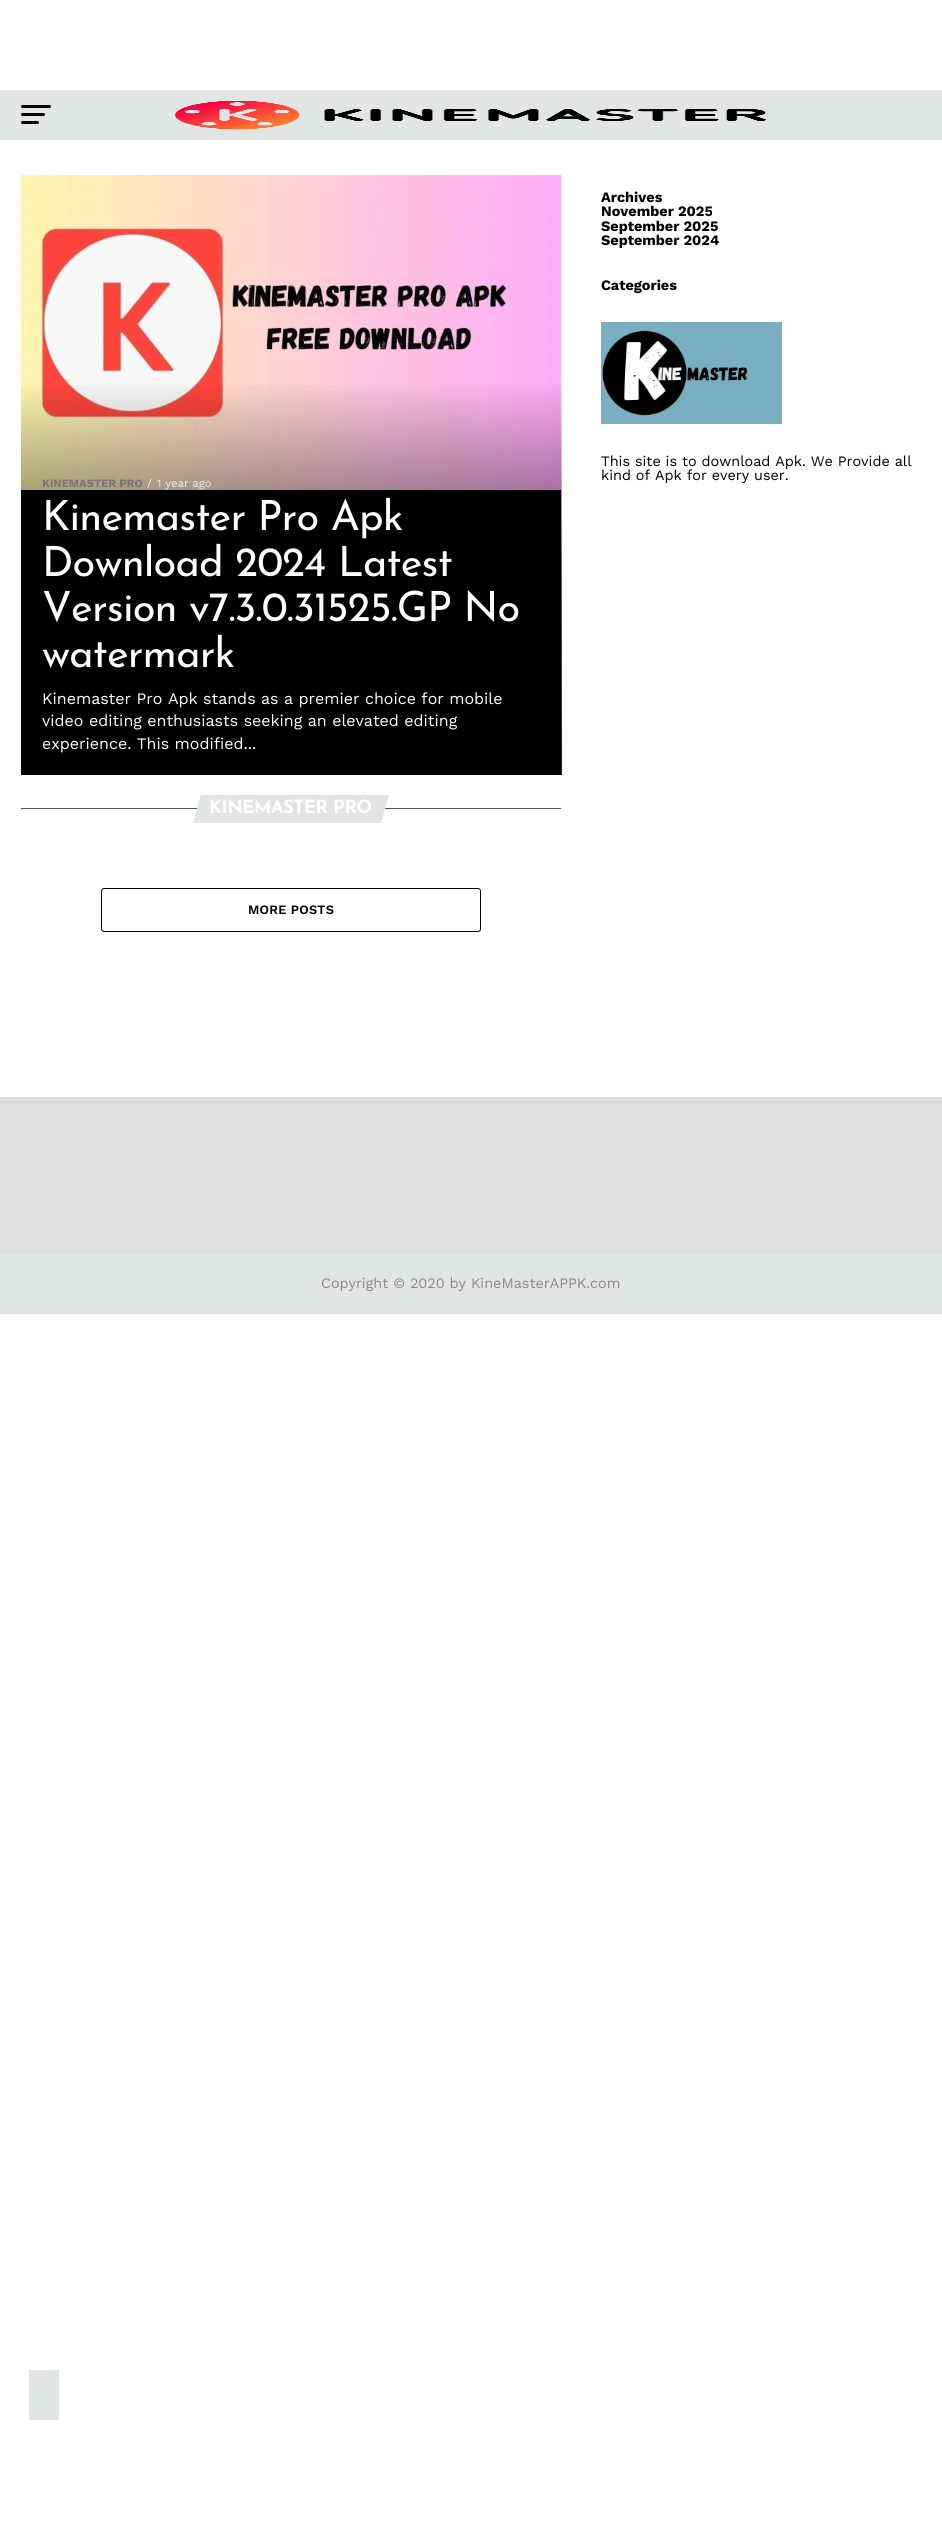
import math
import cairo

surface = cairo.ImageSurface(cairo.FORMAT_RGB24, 942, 2547)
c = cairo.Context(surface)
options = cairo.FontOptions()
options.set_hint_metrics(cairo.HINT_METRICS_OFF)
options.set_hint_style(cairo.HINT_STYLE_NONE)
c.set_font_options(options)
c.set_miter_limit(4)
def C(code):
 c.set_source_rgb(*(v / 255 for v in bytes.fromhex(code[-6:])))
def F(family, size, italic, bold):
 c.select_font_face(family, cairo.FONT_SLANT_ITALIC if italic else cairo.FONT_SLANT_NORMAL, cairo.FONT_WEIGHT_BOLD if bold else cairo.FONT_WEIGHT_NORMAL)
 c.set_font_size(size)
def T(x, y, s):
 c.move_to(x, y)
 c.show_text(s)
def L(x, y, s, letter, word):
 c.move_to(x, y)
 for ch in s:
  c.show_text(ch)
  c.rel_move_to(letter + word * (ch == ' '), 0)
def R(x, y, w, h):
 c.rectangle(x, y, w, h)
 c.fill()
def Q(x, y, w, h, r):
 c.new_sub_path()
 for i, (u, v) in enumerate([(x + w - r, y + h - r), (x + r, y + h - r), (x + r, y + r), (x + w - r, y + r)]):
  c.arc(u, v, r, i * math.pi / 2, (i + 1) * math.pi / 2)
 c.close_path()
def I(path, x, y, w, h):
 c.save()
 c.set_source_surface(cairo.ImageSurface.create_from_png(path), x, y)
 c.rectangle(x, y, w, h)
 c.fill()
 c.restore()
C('ffffff')
c.paint()
C('e1e6e4')
R(0,90,942,50)
C('000000')
Q(21,105,30,3,1.5)
c.fill()
Q(21,113,24,3,1.5)
c.fill()
Q(21,121,18,3,1.5)
c.fill()
I('1.png',175,101,591,28)
F('Work Sans',14.4,0,1)
T(601,202,'Archives')
T(601,216,'November 2025')
T(601,231,'September 2025')
T(601,245,'September 2024')
T(601,290,'Categories')
I('2.png',601,322,181,102)
F('Work Sans',14.4,0,0)
T(601,466,'This site is to download Apk. We Provide all')
T(601,480,'kind of Apk for every user.')
R(21,490,540,285)
I('3.png',21,175,540,315)
gradient = cairo.LinearGradient(292,378,292,775)
gradient.add_color_stop_rgba(0,0,0,0,0)
gradient.add_color_stop_rgba(.5,0,0,0,.6)
gradient.add_color_stop_rgba(1,0,0,0,.9)
c.set_source(gradient)
R(21,385,541,390)
F('Work Sans',11.25,0,1)
C('777777')
T(42,487,'KINEMASTER PRO')
F('Work Sans',11.25,0,0)
C('eeeeee')
T(147,487,'/')
T(157,487,'1 year ago')
F('Josefin Sans',41.6,0,0)
C('ffffff')
L(42,530,'Kinemaster Pro Apk',-.8,0)
L(42,576,'Download 2024 Latest',-.8,0)
L(42,621,'Version v7.3.0.31525.GP No',-.8,0)
L(42,667,'watermark',-.8,0)
F('Work Sans',16,0,0)
T(42,704,'Kinemaster Pro Apk stands as a premier choice for mobile')
T(42,726,'video editing enthusiasts seeking an elevated editing')
T(42,749,'experience. This modified...')
C('555555')
R(21,808,540,1)
C('e1e6e4')
c.new_path()
c.move_to(201,795)
c.line_to(389,795)
c.line_to(381,823)
c.line_to(193,823)
c.close_path()
c.fill()
F('Josefin Sans',18.25,0,1)
C('ffffff')
L(209,813,'KINEMASTER PRO',-.4,0)
Q(101.5,888.5,379,43,2.5)
C('000000')
c.set_line_width(1)
c.stroke()
F('Work Sans SemiBold',12.75,0,0)
L(248,914,'MORE POSTS',.25,0)
C('dedede')
R(0,1097,942,156)
C('e1e6e4')
R(0,1253,942,61)
F('Work Sans',14.4,0,0)
C('888888')
T(321,1288,'Copyright © 2020 by KineMasterAPPK.com')
C('e1e6e4')
R(29,2370,30,50)
surface.write_to_png('o.png')
